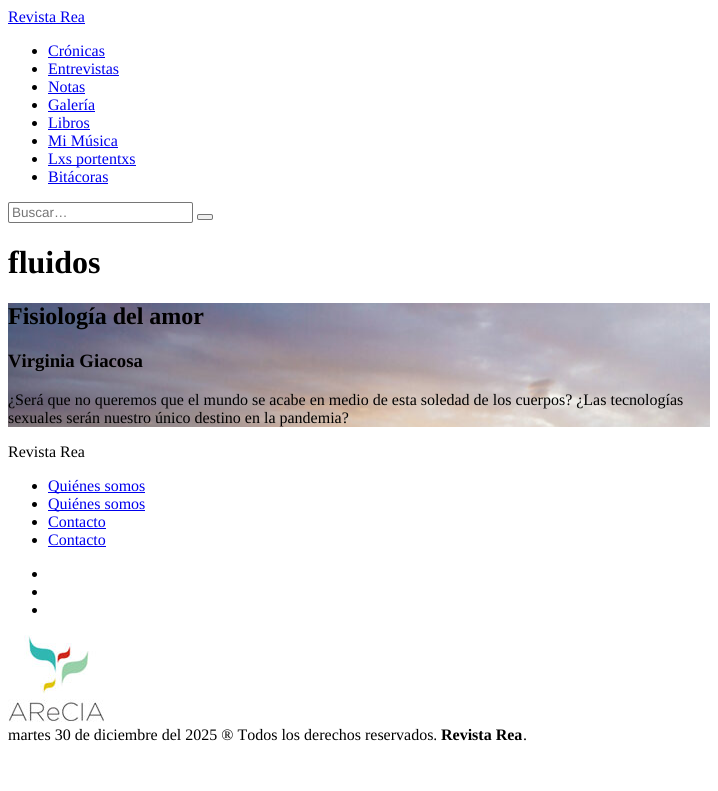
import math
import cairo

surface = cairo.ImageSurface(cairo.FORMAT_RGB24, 718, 791)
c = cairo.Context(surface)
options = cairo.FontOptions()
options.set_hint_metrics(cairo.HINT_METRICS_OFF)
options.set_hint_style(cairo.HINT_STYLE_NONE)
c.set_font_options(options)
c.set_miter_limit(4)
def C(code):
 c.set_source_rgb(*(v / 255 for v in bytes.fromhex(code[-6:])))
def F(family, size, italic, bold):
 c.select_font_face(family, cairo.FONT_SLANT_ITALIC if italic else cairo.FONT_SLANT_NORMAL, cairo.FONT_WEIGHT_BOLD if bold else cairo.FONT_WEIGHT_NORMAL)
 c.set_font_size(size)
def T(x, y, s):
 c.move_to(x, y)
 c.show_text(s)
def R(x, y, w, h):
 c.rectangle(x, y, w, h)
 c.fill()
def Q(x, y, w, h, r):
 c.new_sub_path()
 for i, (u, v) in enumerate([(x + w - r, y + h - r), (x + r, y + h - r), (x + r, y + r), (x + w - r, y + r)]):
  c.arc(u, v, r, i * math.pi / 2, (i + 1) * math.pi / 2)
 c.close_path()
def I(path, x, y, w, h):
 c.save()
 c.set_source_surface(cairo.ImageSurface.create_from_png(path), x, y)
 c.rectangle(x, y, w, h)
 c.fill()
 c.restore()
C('ffffff')
c.paint()
F('Liberation Serif',16,0,0)
C('0000ee')
T(8,22,'Revista Rea')
R(8,23,77,1)
C('000000')
c.new_path()
c.arc(34.5,51.5,2.5,0,2 * math.pi)
c.fill()
C('0000ee')
T(48,56,'Crónicas')
R(48,57,57,1)
C('000000')
c.new_path()
c.arc(34.5,69.5,2.5,0,2 * math.pi)
c.fill()
C('0000ee')
T(48,74,'Entrevistas')
R(48,75,71,1)
C('000000')
c.new_path()
c.arc(34.5,87.5,2.5,0,2 * math.pi)
c.fill()
C('0000ee')
T(48,92,'Notas')
R(48,93,37,1)
C('000000')
c.new_path()
c.arc(34.5,105.5,2.5,0,2 * math.pi)
c.fill()
C('0000ee')
T(48,110,'Galería')
R(48,111,47,1)
C('000000')
c.new_path()
c.arc(34.5,123.5,2.5,0,2 * math.pi)
c.fill()
C('0000ee')
T(48,128,'Libros')
R(48,129,42,1)
C('000000')
c.new_path()
c.arc(34.5,141.5,2.5,0,2 * math.pi)
c.fill()
C('0000ee')
T(48,146,'Mi Música')
R(48,147,70,1)
C('000000')
c.new_path()
c.arc(34.5,159.5,2.5,0,2 * math.pi)
c.fill()
C('0000ee')
R(48,165,88,1)
T(48,164,'Lxs portentxs')
C('000000')
c.new_path()
c.arc(34.5,177.5,2.5,0,2 * math.pi)
c.fill()
C('0000ee')
T(48,182,'Bitácoras')
R(48,183,60,1)
Q(8.5,202.5,184,20,1.5)
C('767676')
c.set_line_width(1)
c.stroke()
F('Liberation Sans',13.5,0,0)
C('757575')
T(12,217,'Buscar…')
C('efefef')
Q(197.5,214.5,15,5,1.5)
c.fill_preserve()
C('767676')
c.stroke()
F('Liberation Serif',32,0,1)
C('000000')
T(8,273,'fluidos')
I('1.png',8,303,702,124)
F('Liberation Serif',24,0,1)
T(8,324,'Fisiología del amor')
F('Liberation Serif',18.75,0,1)
T(8,367,'Virginia Giacosa')
F('Liberation Serif',16,0,0)
T(8,405,'¿Será que no queremos que el mundo se acabe en medio de esta soledad de los cuerpos? ¿Las tecnologías')
T(8,423,'sexuales serán nuestro único destino en la pandemia?')
T(8,457,'Revista Rea')
c.new_path()
c.arc(34.5,486.5,2.5,0,2 * math.pi)
c.fill()
C('0000ee')
R(48,492,97,1)
T(48,491,'Quiénes somos')
C('000000')
c.new_path()
c.arc(34.5,504.5,2.5,0,2 * math.pi)
c.fill()
C('0000ee')
R(48,510,97,1)
T(48,509,'Quiénes somos')
C('000000')
c.new_path()
c.arc(34.5,522.5,2.5,0,2 * math.pi)
c.fill()
C('0000ee')
T(48,527,'Contacto')
R(48,528,58,1)
C('000000')
c.new_path()
c.arc(34.5,540.5,2.5,0,2 * math.pi)
c.fill()
C('0000ee')
T(48,545,'Contacto')
R(48,546,58,1)
C('000000')
c.new_path()
c.arc(34.5,574.5,2.5,0,2 * math.pi)
c.fill()
c.arc(34.5,592.5,2.5,0,2 * math.pi)
c.fill()
c.arc(34.5,610.5,2.5,0,2 * math.pi)
c.fill()
I('2.png',8,635,96,87)
T(8,740,'martes 30 de diciembre del 2025 ® Todos los derechos reservados.')
F('Liberation Serif',16,0,1)
T(441,740,'Revista Rea')
F('Liberation Serif',16,0,0)
T(523,740,'.')
surface.write_to_png('o.png')
